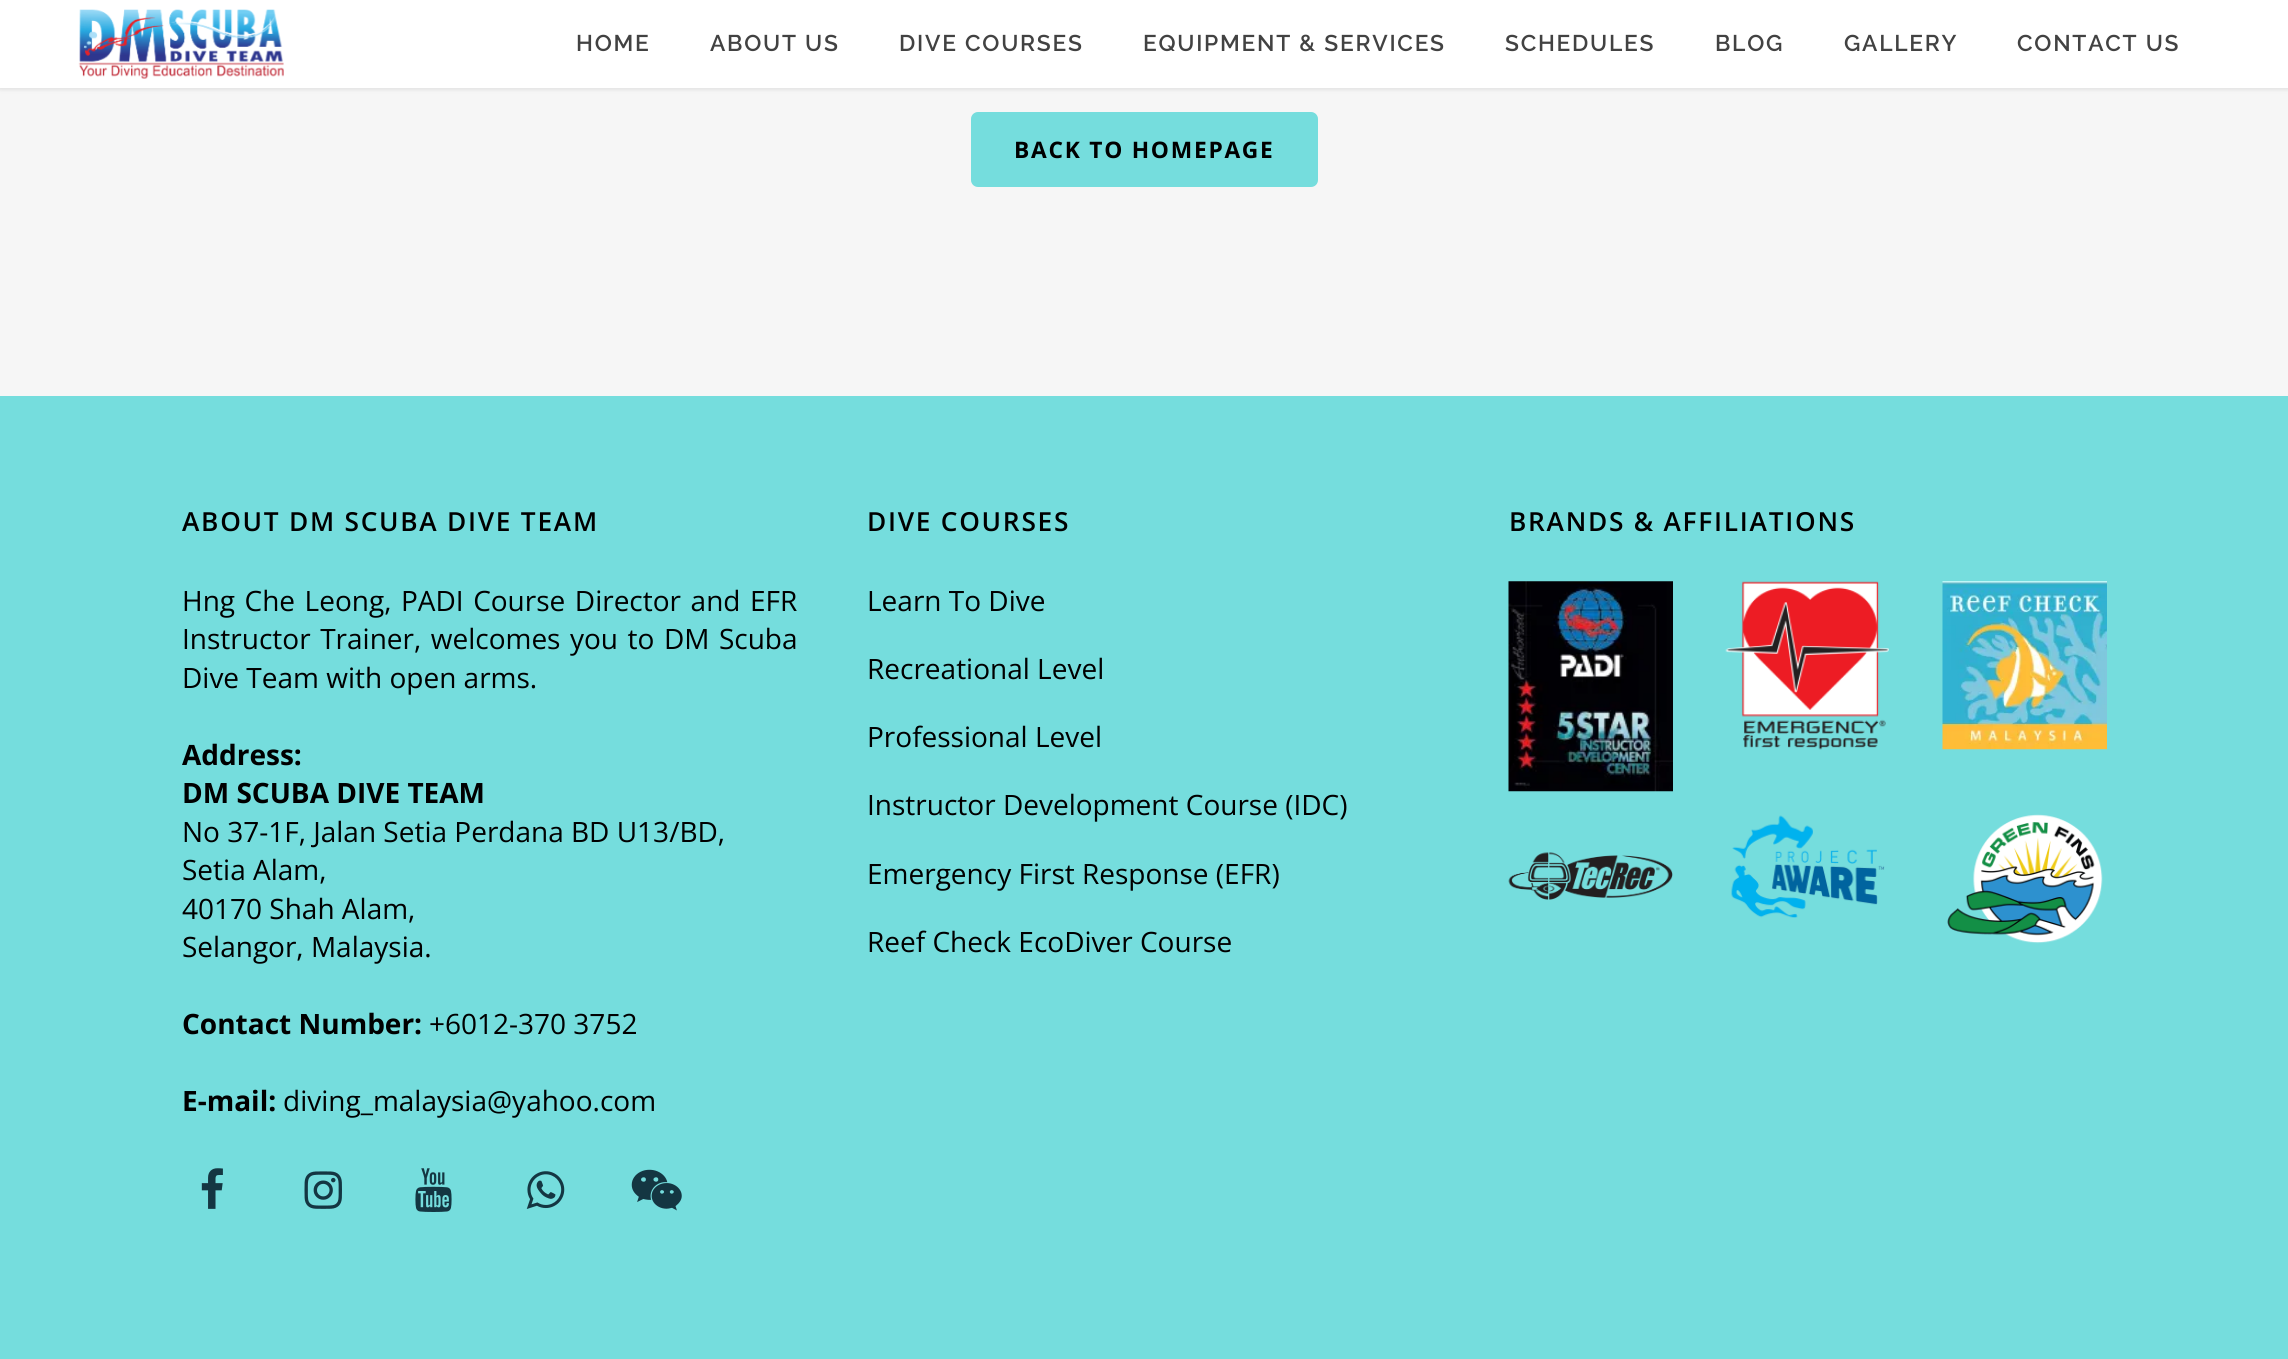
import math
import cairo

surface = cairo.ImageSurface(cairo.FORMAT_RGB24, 2288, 1359)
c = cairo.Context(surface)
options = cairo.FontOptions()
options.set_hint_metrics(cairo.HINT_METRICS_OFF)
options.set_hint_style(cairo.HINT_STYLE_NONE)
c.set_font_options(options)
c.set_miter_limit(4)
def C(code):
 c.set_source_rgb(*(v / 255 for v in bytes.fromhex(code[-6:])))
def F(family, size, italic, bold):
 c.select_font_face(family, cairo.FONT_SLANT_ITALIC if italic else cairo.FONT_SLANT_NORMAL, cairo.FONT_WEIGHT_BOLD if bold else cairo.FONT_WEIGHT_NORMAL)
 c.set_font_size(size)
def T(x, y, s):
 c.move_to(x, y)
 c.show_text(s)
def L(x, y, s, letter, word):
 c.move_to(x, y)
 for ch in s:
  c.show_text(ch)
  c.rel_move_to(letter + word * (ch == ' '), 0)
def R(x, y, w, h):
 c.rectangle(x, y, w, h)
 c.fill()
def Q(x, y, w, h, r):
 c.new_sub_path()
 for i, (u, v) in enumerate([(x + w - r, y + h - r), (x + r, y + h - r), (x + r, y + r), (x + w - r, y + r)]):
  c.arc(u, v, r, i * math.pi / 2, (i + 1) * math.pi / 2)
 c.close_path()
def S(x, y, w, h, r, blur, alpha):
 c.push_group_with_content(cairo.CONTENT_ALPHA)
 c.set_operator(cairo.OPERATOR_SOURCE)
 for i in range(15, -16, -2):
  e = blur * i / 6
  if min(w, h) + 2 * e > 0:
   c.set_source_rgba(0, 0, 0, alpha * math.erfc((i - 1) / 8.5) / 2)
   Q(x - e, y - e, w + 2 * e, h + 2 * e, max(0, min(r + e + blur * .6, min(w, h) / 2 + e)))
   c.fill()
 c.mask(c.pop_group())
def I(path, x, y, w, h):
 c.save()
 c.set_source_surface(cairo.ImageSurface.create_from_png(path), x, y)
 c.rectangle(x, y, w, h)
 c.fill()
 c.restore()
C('f6f6f6')
c.paint()
C('000000')
S(0,2,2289,87,0,2.5,.11)
C('ffffff')
R(0,0,2288,88)
I('1.png',78,9,206,70)
F('Raleway SemiBold',22.75,0,0)
C('424242')
L(576,51,'HOME',1.75,0)
L(710,51,'ABOUT US',1.75,0)
L(899,51,'DIVE COURSES',1.75,0)
L(1143,51,'EQUIPMENT & SERVICES',1.75,0)
L(1505,51,'SCHEDULES',1.75,0)
L(1715,51,'BLOG',1.75,0)
L(1844,51,'GALLERY',1.75,0)
L(2017,51,'CONTACT US',1.75,0)
C('75dddd')
Q(973,114,343,71,5)
c.fill_preserve()
c.set_line_width(4)
c.stroke()
F('Open Sans',22.75,0,1)
C('000000')
L(1014,158,'BACK TO HOMEPAGE',1.75,0)
C('75dddd')
R(0,396,2288,963)
F('Open Sans SemiBold',26.25,0,0)
C('000000')
L(182,531,'ABOUT DM SCUBA DIVE TEAM',1.75,0)
F('Open Sans',28,0,0)
L(182,611,'Hng Che Leong, PADI Course Director and EFR',0,2.25)
L(182,649,'Instructor Trainer, welcomes you to DM Scuba',0,2.25)
T(182,688,'Dive Team with open arms.')
F('Open Sans',28,0,1)
T(182,765,'Address:')
T(182,803,'DM SCUBA DIVE TEAM')
F('Open Sans',28,0,0)
T(182,842,'No 37-1F, Jalan Setia Perdana BD U13/BD,')
T(182,880,'Setia Alam,')
T(182,919,'40170 Shah Alam,')
T(182,957,'Selangor, Malaysia.')
F('Open Sans',28,0,1)
T(182,1034,'Contact Number:')
F('Open Sans',28,0,0)
T(429,1034,'+6012-370 3752')
F('Open Sans',28,0,1)
T(182,1111,'E-mail:')
F('Open Sans',28,0,0)
T(283,1111,'diving_malaysia@yahoo.com')
I('2.png',201,1168,22,41)
I('3.png',304,1171,38,38)
I('4.png',415,1168,37,44)
I('5.png',526,1171,39,38)
I('6.png',631,1169,51,42)
F('Open Sans SemiBold',26.25,0,0)
L(867,531,'DIVE COURSES',1.75,0)
F('Open Sans',28,0,0)
T(867,611,'Learn To Dive')
T(867,679,'Recreational Level')
T(867,747,'Professional Level')
T(867,815,'Instructor Development Course (IDC)')
T(867,884,'Emergency First Response (EFR)')
T(867,952,'Reef Check EcoDiver Course')
F('Open Sans SemiBold',26.25,0,0)
L(1509,531,'BRANDS & AFFILIATIONS',1.75,0)
I('7.png',1508,581,165,211)
I('8.png',1508,852,165,48)
I('9.png',1725,581,164,169)
I('10.png',1731,815,154,103)
I('11.png',1942,581,165,169)
I('12.png',1947,814,156,130)
surface.write_to_png('o.png')
